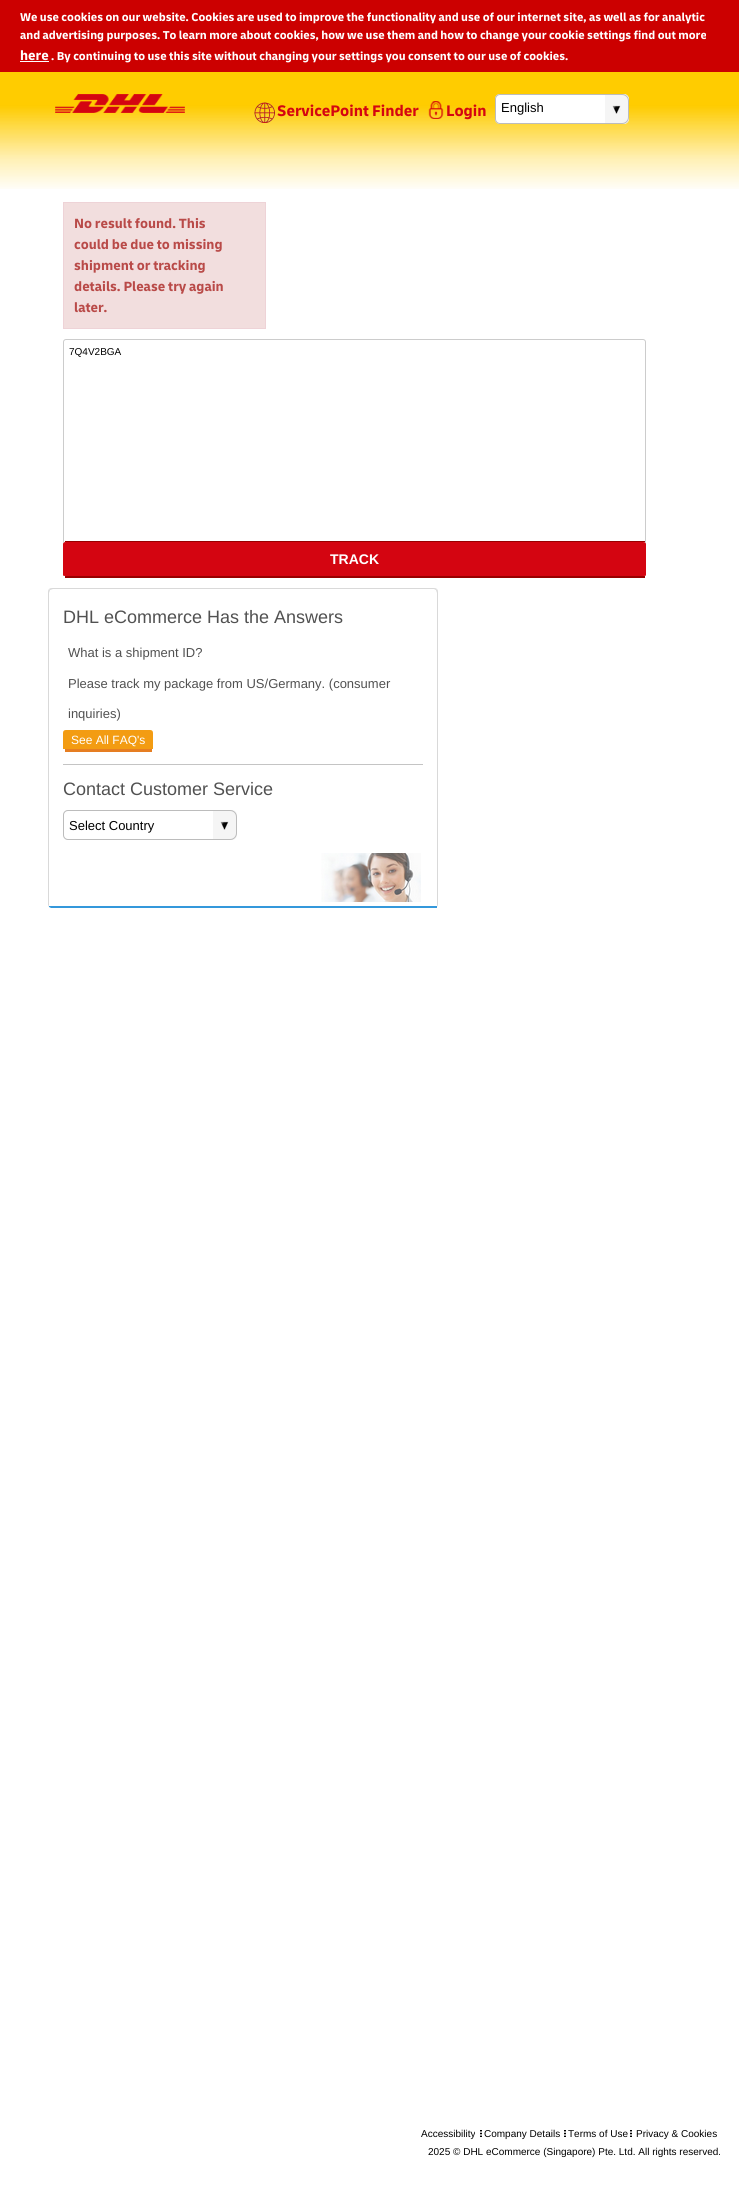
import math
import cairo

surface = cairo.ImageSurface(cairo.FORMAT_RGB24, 739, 2188)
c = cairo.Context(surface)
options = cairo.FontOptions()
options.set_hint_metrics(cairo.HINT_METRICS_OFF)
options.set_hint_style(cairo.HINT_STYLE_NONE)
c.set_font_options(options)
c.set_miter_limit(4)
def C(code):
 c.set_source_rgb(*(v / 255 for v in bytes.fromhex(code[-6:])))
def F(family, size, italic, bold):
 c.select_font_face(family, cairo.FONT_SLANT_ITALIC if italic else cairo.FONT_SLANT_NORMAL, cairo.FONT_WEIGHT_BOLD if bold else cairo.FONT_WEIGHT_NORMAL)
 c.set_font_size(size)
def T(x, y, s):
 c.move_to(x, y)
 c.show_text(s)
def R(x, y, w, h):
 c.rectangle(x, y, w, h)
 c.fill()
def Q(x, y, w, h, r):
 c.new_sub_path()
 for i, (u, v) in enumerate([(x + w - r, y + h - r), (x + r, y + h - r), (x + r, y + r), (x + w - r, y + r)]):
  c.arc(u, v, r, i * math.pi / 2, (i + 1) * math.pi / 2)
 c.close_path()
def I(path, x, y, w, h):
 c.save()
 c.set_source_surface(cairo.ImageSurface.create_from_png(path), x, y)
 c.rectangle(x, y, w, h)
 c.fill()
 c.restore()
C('ffffff')
c.paint()
C('cc0000')
R(0,0,739,72)
F('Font',12,0,1)
C('ffffff')
T(20,21,'We use cookies on our website. Cookies are used to improve the functionality and use of our internet site, as well as for analytic')
T(20,39,'and advertising purposes. To learn more about cookies, how we use them and how to change your cookie settings find out more')
F('Font',14,0,1)
T(20,60,'here')
R(20,61,29,1)
F('Font',12,0,1)
T(51,60,'. By continuing to use this site without changing your settings you consent to our use of cookies.')
I('1.png',0,72,739,117)
I('2.png',55,94,130,19)
I('3.png',254,102,21,21)
F('Font',16,0,1)
C('d40511')
T(277,116,'ServicePoint Finder')
I('4.png',428,101,16,18)
T(446,116,'Login')
C('f5f5f5')
Q(495,94,134,30,5)
c.fill()
C('ffffff')
Q(495.5,94.5,131,29,4.5)
c.fill_preserve()
C('bcbcbc')
c.set_line_width(1)
c.stroke()
F('Liberation Sans',13,0,0)
C('000000')
T(501,112,'English')
C('f5f5f5')
c.new_path()
c.move_to(605,94)
c.line_to(622,94)
c.curve_to(626,94,629,97,629,101)
c.line_to(629,117)
c.curve_to(629,121,626,124,622,124)
c.line_to(605,124)
c.close_path()
c.fill()
C('bcbcbc')
c.set_fill_rule(cairo.FILL_RULE_EVEN_ODD)
c.new_path()
c.move_to(605,94)
c.line_to(622,94)
c.curve_to(626,94,629,97,629,101)
c.line_to(629,117)
c.curve_to(629,121,626,124,622,124)
c.line_to(605,124)
c.close_path()
c.move_to(605,95)
c.line_to(622,95)
c.curve_to(625.5,95,628,97.5,628,101)
c.line_to(628,117)
c.curve_to(628,120.5,625.5,123,622,123)
c.line_to(605,123)
c.close_path()
c.fill()
I('5.png',612,105,9,9)
C('f2dede')
c.rectangle(63.5,202.5,202,126)
c.fill_preserve()
C('eed3d7')
c.stroke()
F('Font',14,0,1)
C('b94a48')
T(74,228,'No result found. This')
T(74,249,'could be due to missing')
T(74,270,'shipment or tracking')
T(74,291,'details. Please try again')
T(74,312,'later.')
Q(63.5,339.5,582,204,2.5)
C('cccccc')
c.stroke()
F('Liberation Sans',10,0,0)
C('000000')
T(69,355,'7Q4V2BGA')
C('d40511')
c.set_fill_rule(cairo.FILL_RULE_WINDING)
c.new_path()
c.move_to(66,542)
c.line_to(643,542)
c.curve_to(645,542,646,543,646,544)
c.line_to(646,575)
c.curve_to(646,576,645,576,643,576)
c.line_to(66,576)
c.curve_to(64,576,63,576,63,575)
c.line_to(63,544)
c.curve_to(63,543,64,542,66,542)
c.close_path()
c.fill()
C('990000')
R(65,541,580,1)
R(65,576,580,2)
F('Liberation Sans',14,0,1)
C('ffffff')
T(330,564,'TRACK')
C('d9d9d9')
c.new_path()
c.move_to(53,588)
c.curve_to(52,588,50,588,49,589)
c.line_to(50,590)
c.line_to(53,589)
c.line_to(434,589)
c.line_to(436,590)
c.line_to(437,589)
c.curve_to(436,588,434,588,433,588)
c.close_path()
c.fill()
c.new_path()
c.move_to(438,905)
c.line_to(438,593)
c.curve_to(438,592,438,590,437,589)
c.line_to(436,590)
c.line_to(437,593)
c.line_to(437,906)
c.line_to(437,907)
c.close_path()
c.fill()
C('3498db')
c.new_path()
c.move_to(51,908)
c.line_to(437,908)
c.line_to(437,907)
c.line_to(437,906)
c.line_to(435,906)
c.line_to(51,906)
c.line_to(49,906)
c.line_to(49,907)
c.close_path()
c.fill()
C('d9d9d9')
c.new_path()
c.move_to(48,593)
c.line_to(48,905)
c.line_to(49,907)
c.line_to(49,906)
c.line_to(49,593)
c.line_to(50,590)
c.line_to(49,589)
c.curve_to(48,590,48,592,48,593)
c.close_path()
c.fill()
F('Liberation Sans',18,0,0)
C('515151')
T(63,623,'DHL eCommerce Has the Answers')
F('Liberation Sans',13,0,0)
T(68,657,'What is a shipment ID?')
T(68,688,'Please track my package from US/Germany. (consumer')
T(68,718,'inquiries)')
C('f39c12')
c.new_path()
c.move_to(66,730)
c.line_to(150,730)
c.curve_to(152,730,153,731,153,733)
c.line_to(153,749)
c.line_to(63,749)
c.line_to(63,733)
c.curve_to(63,731,64,730,66,730)
c.close_path()
c.fill()
C('e67e22')
R(65,749,87,3)
F('Liberation Sans',12,0,0)
C('ffffff')
T(71,744,'See All FAQ\'s')
C('c4c4c4')
R(63,764,360,1)
F('Liberation Sans',18,0,0)
C('515151')
T(63,795,'Contact Customer Service')
C('f5f5f5')
Q(63,810,174,30,5)
c.fill()
C('ffffff')
Q(63.5,810.5,171,29,4.5)
c.fill_preserve()
C('bcbcbc')
c.stroke()
F('Liberation Sans',13,0,0)
C('000000')
T(69,830,'Select Country')
C('f5f5f5')
c.new_path()
c.move_to(213,810)
c.line_to(230,810)
c.curve_to(234,810,237,813,237,817)
c.line_to(237,833)
c.curve_to(237,837,234,840,230,840)
c.line_to(213,840)
c.close_path()
c.fill()
C('bcbcbc')
c.set_fill_rule(cairo.FILL_RULE_EVEN_ODD)
c.new_path()
c.move_to(213,810)
c.line_to(230,810)
c.curve_to(234,810,237,813,237,817)
c.line_to(237,833)
c.curve_to(237,837,234,840,230,840)
c.line_to(213,840)
c.close_path()
c.move_to(213,811)
c.line_to(230,811)
c.curve_to(233.5,811,236,813.5,236,817)
c.line_to(236,833)
c.curve_to(236,836.5,233.5,839,230,839)
c.line_to(213,839)
c.close_path()
c.fill()
I('5.png',220,821,9,9)
I('6.png',321,853,100,49)
F('Liberation Sans',10,0,0)
C('000000')
T(421,2137,'Accessibility')
I('7.png',480,2130,2,7)
T(484,2137,'Company Details')
I('7.png',564,2130,2,7)
T(568,2137,'Terms of Use')
I('7.png',630,2130,2,7)
T(636,2137,'Privacy & Cookies')
T(428,2155,'2025 © DHL eCommerce (Singapore) Pte. Ltd. All rights reserved.')
surface.write_to_png('o.png')
